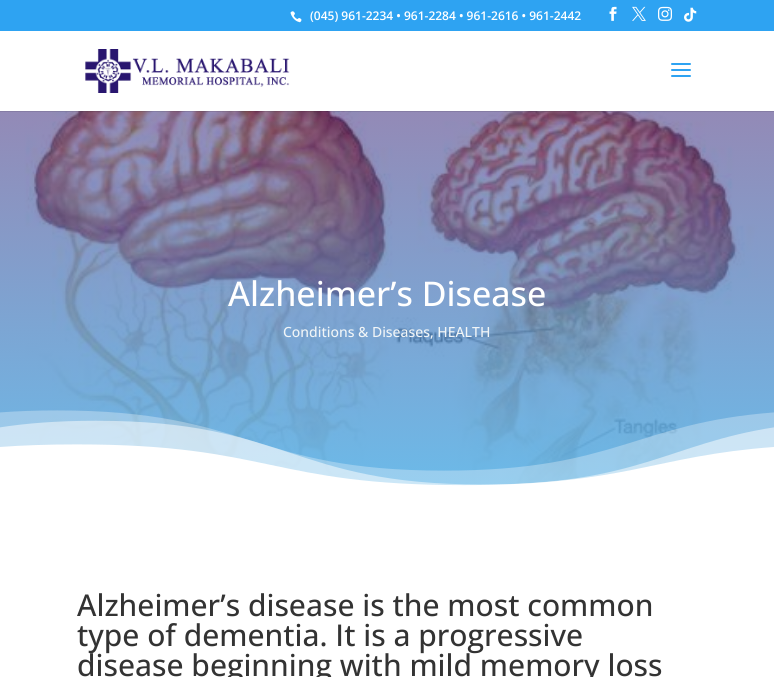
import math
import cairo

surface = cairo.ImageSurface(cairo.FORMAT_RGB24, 774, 677)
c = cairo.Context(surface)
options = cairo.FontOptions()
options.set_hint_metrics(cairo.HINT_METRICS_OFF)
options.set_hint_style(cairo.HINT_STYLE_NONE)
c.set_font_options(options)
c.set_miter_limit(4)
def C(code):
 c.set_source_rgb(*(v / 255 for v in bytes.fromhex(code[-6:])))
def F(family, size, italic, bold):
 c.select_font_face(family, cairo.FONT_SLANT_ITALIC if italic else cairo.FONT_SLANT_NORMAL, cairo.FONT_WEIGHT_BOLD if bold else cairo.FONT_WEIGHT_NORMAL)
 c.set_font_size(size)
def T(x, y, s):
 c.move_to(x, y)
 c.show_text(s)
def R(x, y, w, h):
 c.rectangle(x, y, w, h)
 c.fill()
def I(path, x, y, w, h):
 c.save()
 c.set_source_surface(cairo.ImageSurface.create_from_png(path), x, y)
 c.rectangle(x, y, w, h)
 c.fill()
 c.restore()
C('ffffff')
c.paint()
C('2ea3f2')
R(0,0,774,31)
I('1.png',290,11,12,12)
F('Open Sans SemiBold',12,0,0)
C('ffffff')
T(310,20,'(045) 961-2234 • 961-2284 • 961-2616 • 961-2442')
I('2.png',609,6,8,15)
I('3.png',632,6,14,15)
I('4.png',658,6,14,15)
I('5.png',684,7,13,15)
I('8.png',0,111,774,375)
c.set_source_rgba(0,0,0,0.1)
R(0,111,774,1)
I('6.png',85,49,205,44)
I('7.png',671,63,20,14)
F('Open Sans Medium',34,0,0)
C('ffffff')
T(228,306,'Alzheimer’s Disease')
F('Open Sans Medium',14,0,0)
C('f1f5f7')
T(283,337,'Conditions & Diseases, HEALTH')
I('9.png',0,410,774,100)
F('Open Sans Medium',30,0,0)
C('333333')
T(77,616,'Alzheimer’s disease is the most common')
T(77,646,'type of dementia. It is a progressive')
T(77,676,'disease beginning with mild memory loss')
surface.write_to_png('o.png')
